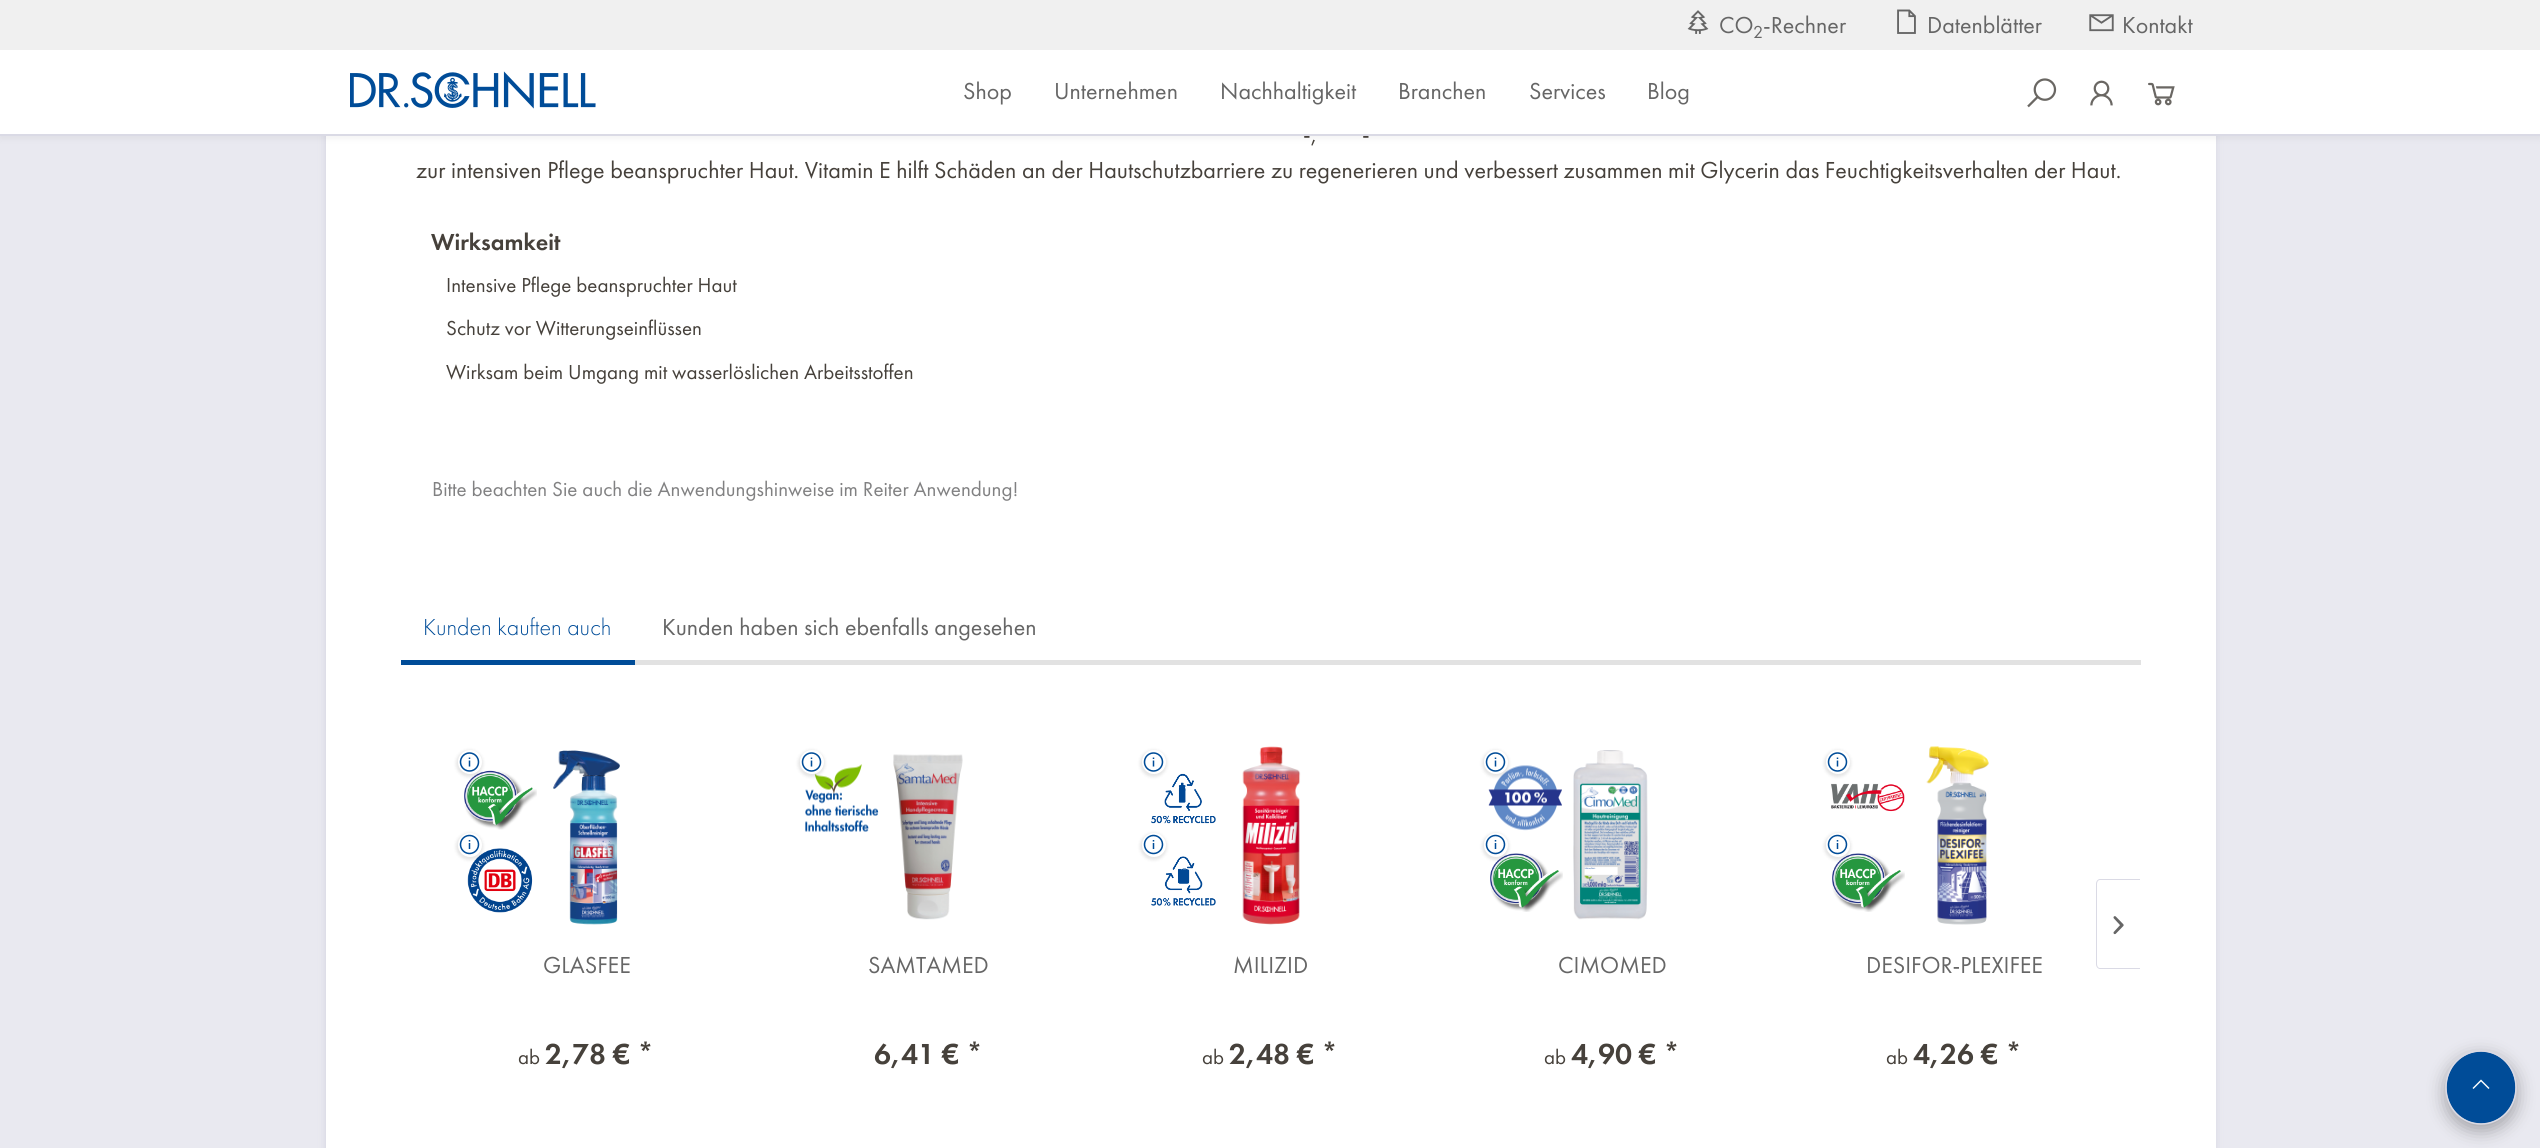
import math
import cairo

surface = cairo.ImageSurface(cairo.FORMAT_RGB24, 2540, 1148)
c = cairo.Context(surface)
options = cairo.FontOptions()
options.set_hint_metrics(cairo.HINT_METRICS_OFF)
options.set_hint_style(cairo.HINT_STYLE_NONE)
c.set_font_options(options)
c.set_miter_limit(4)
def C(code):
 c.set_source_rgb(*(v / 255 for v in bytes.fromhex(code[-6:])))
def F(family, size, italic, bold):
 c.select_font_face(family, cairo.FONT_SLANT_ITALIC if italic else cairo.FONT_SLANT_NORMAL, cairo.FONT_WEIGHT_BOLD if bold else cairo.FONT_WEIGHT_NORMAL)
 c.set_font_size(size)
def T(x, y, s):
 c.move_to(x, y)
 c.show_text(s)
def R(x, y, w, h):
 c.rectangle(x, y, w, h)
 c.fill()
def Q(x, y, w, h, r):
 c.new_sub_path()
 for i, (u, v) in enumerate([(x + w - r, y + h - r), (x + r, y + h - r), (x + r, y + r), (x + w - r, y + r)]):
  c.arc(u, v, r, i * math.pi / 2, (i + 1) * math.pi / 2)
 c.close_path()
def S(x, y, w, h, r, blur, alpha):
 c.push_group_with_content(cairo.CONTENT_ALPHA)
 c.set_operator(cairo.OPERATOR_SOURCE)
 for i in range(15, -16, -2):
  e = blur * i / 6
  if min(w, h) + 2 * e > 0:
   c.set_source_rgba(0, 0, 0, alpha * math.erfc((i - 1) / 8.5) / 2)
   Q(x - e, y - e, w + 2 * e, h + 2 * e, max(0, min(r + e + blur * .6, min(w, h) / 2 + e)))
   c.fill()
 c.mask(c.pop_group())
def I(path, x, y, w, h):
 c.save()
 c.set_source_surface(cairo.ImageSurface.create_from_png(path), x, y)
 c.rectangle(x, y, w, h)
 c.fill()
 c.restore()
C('e9e9f0')
c.paint()
C('dadae5')
S(324,-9,1893,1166,0,3,1)
C('ffffff')
R(326,136,1890,1012)
C('000000')
S(0,3,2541,135,0,4,.06)
C('ffffff')
R(0,50,2540,84)
C('dadae5')
R(0,134,2540,2)
C('f0f0f0')
R(0,0,2540,50)
I('1.png',1687,10,22,24)
F('Futura PT',24,0,0)
C('666666')
T(1719,33,'CO')
F('Futura PT',18,0,0)
T(1753,38,'2')
F('Futura PT',24,0,0)
T(1763,33,'-Rechner')
I('2.png',1897,9,19,25)
T(1927,33,'Datenblätter')
I('3.png',2089,14,25,18)
T(2122,33,'Kontakt')
I('4.png',350,71,246,38)
T(963,99,'Shop')
T(1054,99,'Unternehmen')
T(1220,99,'Nachhaltigkeit')
T(1398,99,'Branchen')
T(1529,99,'Services')
T(1647,99,'Blog')
I('5.png',2027,78,30,30)
I('6.png',2090,80,23,26)
I('7.png',2148,82,27,24)
C('46413b')
T(1303,142,'-,')
T(1362,142,'-')
T(416,178,'zur intensiven Pflege beanspruchter Haut. Vitamin E hilft Schäden an der Hautschutzbarriere zu regenerieren und verbessert zusammen mit Glycerin das Feuchtigkeitsverhalten der Haut.')
F('Futura PT Medium',24,0,0)
T(431,250,'Wirksamkeit')
F('Futura PT',21,0,0)
T(446,292,'Intensive Pflege beanspruchter Haut')
T(446,335,'Schutz vor Witterungseinflüssen')
T(446,379,'Wirksam beim Umgang mit wasserlöslichen Arbeitsstoffen')
C('818182')
T(432,496,'Bitte beachten Sie auch die Anwendungshinweise im Reiter Anwendung!')
C('e2e2e2')
R(635,660,1506,5)
C('004c98')
R(401,660,234,5)
F('Futura PT Light',24,0,0)
T(423,635,'Kunden kauften auch')
F('Futura PT',24,0,0)
C('666666')
T(662,635,'Kunden haben sich ebenfalls angesehen')
C('dadae5')
c.set_fill_rule(cairo.FILL_RULE_EVEN_ODD)
c.new_path()
c.move_to(2100,879)
c.line_to(2140,879)
c.line_to(2140,969)
c.line_to(2100,969)
c.curve_to(2098,969,2096,967,2096,964)
c.line_to(2096,884)
c.curve_to(2096,881,2098,879,2100,879)
c.close_path()
c.move_to(2100,880)
c.line_to(2140,880)
c.line_to(2140,968)
c.line_to(2100,968)
c.curve_to(2098,968,2097,966,2097,964)
c.line_to(2097,884)
c.curve_to(2097,882,2098,880,2100,880)
c.close_path()
c.fill()
I('8.png',2113,916,11,19)
I('10.png',464,770,73,60)
C('000000')
S(456,750,27,27,13.5,1.5,.1)
C('ffffff')
c.arc(470,762,12,0,2 * math.pi)
c.fill()
I('9.png',459,752,21,20)
I('12.png',467,848,66,65)
C('000000')
S(456,833,27,27,13.5,1.5,.1)
C('ffffff')
c.arc(470,845,12,0,2 * math.pi)
c.fill()
I('11.png',459,834,21,21)
I('13.png',553,750,67,175)
C('666666')
T(543,973,'GLASFEE')
F('Futura PT',21,0,0)
C('46413b')
T(518,1064,'ab')
F('Futura PT Medium',30,0,0)
T(545,1064,'2,78 € *')
I('14.png',805,764,74,68)
C('000000')
S(798,750,27,27,13.5,1.5,.1)
C('ffffff')
c.arc(812,762,12,0,2 * math.pi)
c.fill()
I('9.png',801,752,21,20)
I('15.png',893,754,70,166)
F('Futura PT',24,0,0)
C('666666')
T(868,973,'SAMTAMED')
F('Futura PT Medium',30,0,0)
C('46413b')
T(874,1064,'6,41 € *')
I('16.png',1151,773,65,51)
C('000000')
S(1140,750,27,27,13.5,1.5,.1)
C('ffffff')
c.arc(1154,762,12,0,2 * math.pi)
c.fill()
I('9.png',1143,752,21,20)
I('17.png',1151,856,65,50)
C('000000')
S(1140,833,27,27,13.5,1.5,.1)
C('ffffff')
c.arc(1154,845,12,0,2 * math.pi)
c.fill()
I('11.png',1143,834,21,21)
I('18.png',1242,746,59,179)
F('Futura PT',24,0,0)
C('666666')
T(1233,973,'MILIZID')
F('Futura PT',21,0,0)
C('46413b')
T(1202,1064,'ab')
F('Futura PT Medium',30,0,0)
T(1229,1064,'2,48 € *')
I('20.png',1488,765,74,66)
C('000000')
S(1482,750,27,27,13.5,1.5,.1)
C('ffffff')
c.arc(1496,762,12,0,2 * math.pi)
c.fill()
I('19.png',1485,752,21,20)
I('21.png',1490,853,73,59)
C('000000')
S(1482,833,27,27,13.5,1.5,.1)
C('ffffff')
c.arc(1496,845,12,0,2 * math.pi)
c.fill()
I('11.png',1485,834,21,21)
I('22.png',1573,750,75,170)
F('Futura PT',24,0,0)
C('666666')
T(1558,973,'CIMOMED')
F('Futura PT',21,0,0)
C('46413b')
T(1544,1064,'ab')
F('Futura PT Medium',30,0,0)
T(1571,1064,'4,90 € *')
C('000000')
S(1824,750,27,27,13.5,1.5,.1)
C('ffffff')
c.arc(1838,762,12,0,2 * math.pi)
c.fill()
I('9.png',1827,752,21,20)
I('23.png',1831,783,74,29)
I('24.png',1832,853,73,59)
C('000000')
S(1824,833,27,27,13.5,1.5,.1)
C('ffffff')
c.arc(1838,845,12,0,2 * math.pi)
c.fill()
I('11.png',1827,834,21,21)
I('25.png',1926,746,63,179)
F('Futura PT',24,0,0)
C('666666')
T(1866,973,'DESIFOR-PLEXIFEE')
F('Futura PT',21,0,0)
C('46413b')
T(1886,1064,'ab')
F('Futura PT Medium',30,0,0)
T(1913,1064,'4,26 € *')
C('000000')
S(2445,1056,72,75,36,9,.3)
C('004c98')
c.new_path()
c.move_to(2481,1051.5)
c.curve_to(2500,1051.5,2515.5,1067.5,2515.5,1087.5)
c.curve_to(2515.5,1107.5,2500,1123.5,2481,1123.5)
c.curve_to(2462,1123.5,2446.5,1107.5,2446.5,1087.5)
c.curve_to(2446.5,1067.5,2462,1051.5,2481,1051.5)
c.close_path()
c.fill()
c.new_path()
c.move_to(2481,1051)
c.curve_to(2500.5,1051,2516,1067,2516,1087.5)
c.curve_to(2516,1108,2500.5,1124,2481,1124)
c.curve_to(2461.5,1124,2446,1108,2446,1087.5)
c.curve_to(2446,1067,2461.5,1051,2481,1051)
c.close_path()
C('dadae5')
c.set_line_width(1.5)
c.stroke()
C('ffffff')
c.set_fill_rule(cairo.FILL_RULE_WINDING)
c.new_path()
c.move_to(2481,1079.5)
c.line_to(2472.5,1088)
c.line_to(2473.5,1089)
c.line_to(2481,1081.5)
c.line_to(2488.5,1089)
c.line_to(2489.5,1088)
c.close_path()
c.fill()
surface.write_to_png('o.png')
